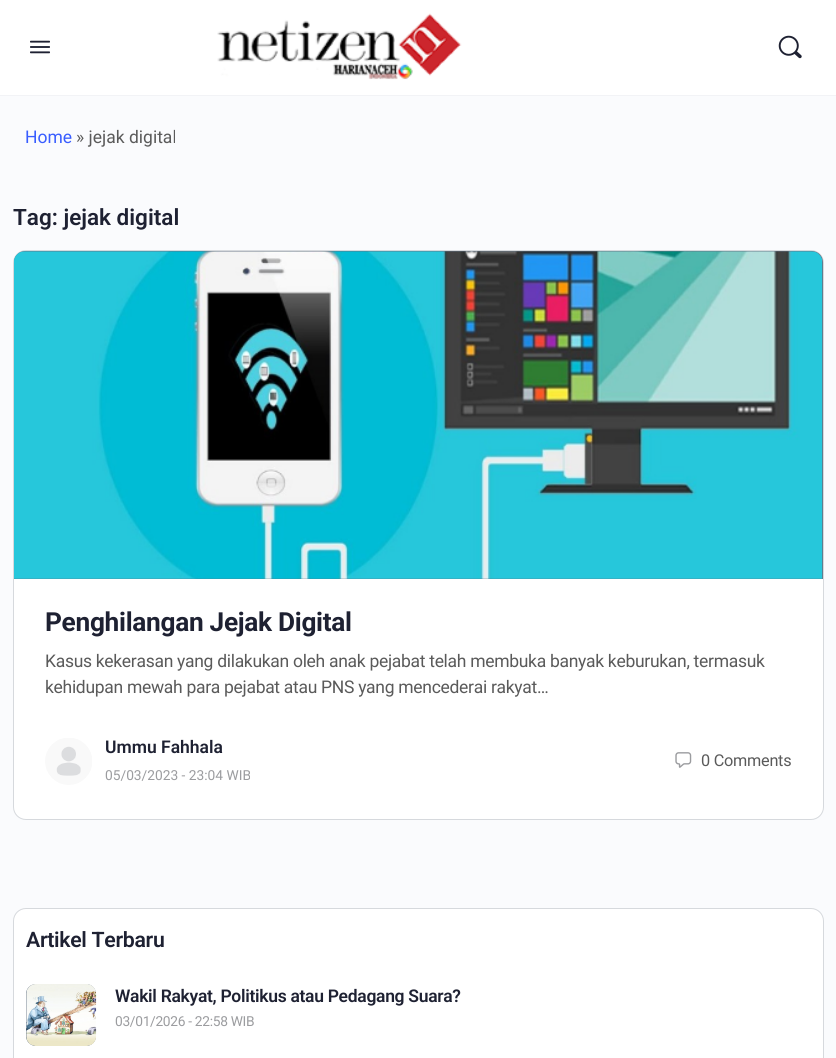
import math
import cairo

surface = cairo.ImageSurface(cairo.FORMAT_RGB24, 836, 1058)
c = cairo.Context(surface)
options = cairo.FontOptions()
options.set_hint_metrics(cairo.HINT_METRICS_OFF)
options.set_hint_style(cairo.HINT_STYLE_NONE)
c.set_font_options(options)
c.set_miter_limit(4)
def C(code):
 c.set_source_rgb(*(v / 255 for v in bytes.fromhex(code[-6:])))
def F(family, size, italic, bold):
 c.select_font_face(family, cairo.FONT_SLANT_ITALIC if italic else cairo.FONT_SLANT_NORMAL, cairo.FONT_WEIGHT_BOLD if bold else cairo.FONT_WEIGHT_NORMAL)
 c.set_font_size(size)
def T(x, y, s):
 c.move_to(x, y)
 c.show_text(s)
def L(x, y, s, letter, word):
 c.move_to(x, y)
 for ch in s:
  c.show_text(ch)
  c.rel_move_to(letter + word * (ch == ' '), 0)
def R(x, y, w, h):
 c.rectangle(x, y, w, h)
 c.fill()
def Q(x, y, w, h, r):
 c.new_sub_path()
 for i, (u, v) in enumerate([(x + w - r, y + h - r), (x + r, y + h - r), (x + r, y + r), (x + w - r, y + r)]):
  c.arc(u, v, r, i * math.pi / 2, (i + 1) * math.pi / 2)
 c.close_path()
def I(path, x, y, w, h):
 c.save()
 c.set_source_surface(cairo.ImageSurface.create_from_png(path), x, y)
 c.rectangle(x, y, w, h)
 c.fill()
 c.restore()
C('fafbfd')
c.paint()
C('f2f3f6')
R(0,95,836,1)
C('ffffff')
R(0,0,836,95)
I('1.png',30,40,20,14)
I('2.png',217,13,245,67)
I('3.png',778,35,24,24)
F('Roboto',17.5,0,0)
C('385dff')
T(25,143,'Home')
C('5a5a5a')
T(76,143,'» jejak digital')
F('Roboto SemiBold',22.5,0,0)
C('1e2132')
T(13,225,'Tag: jejak digital')
C('ffffff')
Q(13.5,250.5,810,569,12.5)
c.fill_preserve()
C('d6d9dd')
c.set_line_width(1)
c.stroke()
C('647385')
c.new_path()
c.move_to(25,251)
c.line_to(812,251)
c.curve_to(818,251,823,256,823,262)
c.line_to(823,579)
c.line_to(14,579)
c.line_to(14,262)
c.curve_to(14,256,19,251,25,251)
c.close_path()
c.fill()
I('4.png',14,251,809,328)
F('Roboto',26.25,0,1)
C('1e2132')
L(45,631,'Penghilangan Jejak Digital',-.3,0)
F('Roboto',17.5,0,0)
C('5a5a5a')
L(45,667,'Kasus kekerasan yang dilakukan oleh anak pejabat telah membuka banyak keburukan, termasuk',-.3,0)
L(45,693,'kehidupan mewah para pejabat atau PNS yang mencederai rakyat…',-.3,0)
I('5.png',45,738,47,47)
F('Roboto SemiBold',17.5,0,0)
C('1e2132')
T(105,753,'Ummu Fahhala')
F('Roboto',13.75,0,0)
C('9b9c9f')
T(105,780,'05/03/2023 - 23:04 WIB')
I('6.png',675,752,17,16)
F('Roboto',16.25,0,0)
C('5a5a5a')
L(701,766,'0 Comments',-.25,0)
C('ffffff')
Q(13.5,908.5,810,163,12.5)
c.fill_preserve()
C('d6d9dd')
c.stroke()
F('Roboto SemiBold',21.25,0,0)
C('1e2132')
L(26,947,'Artikel Terbaru',-.3,0)
C('647385')
Q(26,984,70,62,10)
c.fill()
I('7.png',26,984,71,62)
F('Roboto SemiBold',17.5,0,0)
C('1e2132')
L(115,1002,'Wakil Rakyat, Politikus atau Pedagang Suara?',-.3,0)
F('Roboto',13.75,0,0)
C('9b9c9f')
L(115,1026,'03/01/2026 - 22:58 WIB',-.3,0)
surface.write_to_png('o.png')
